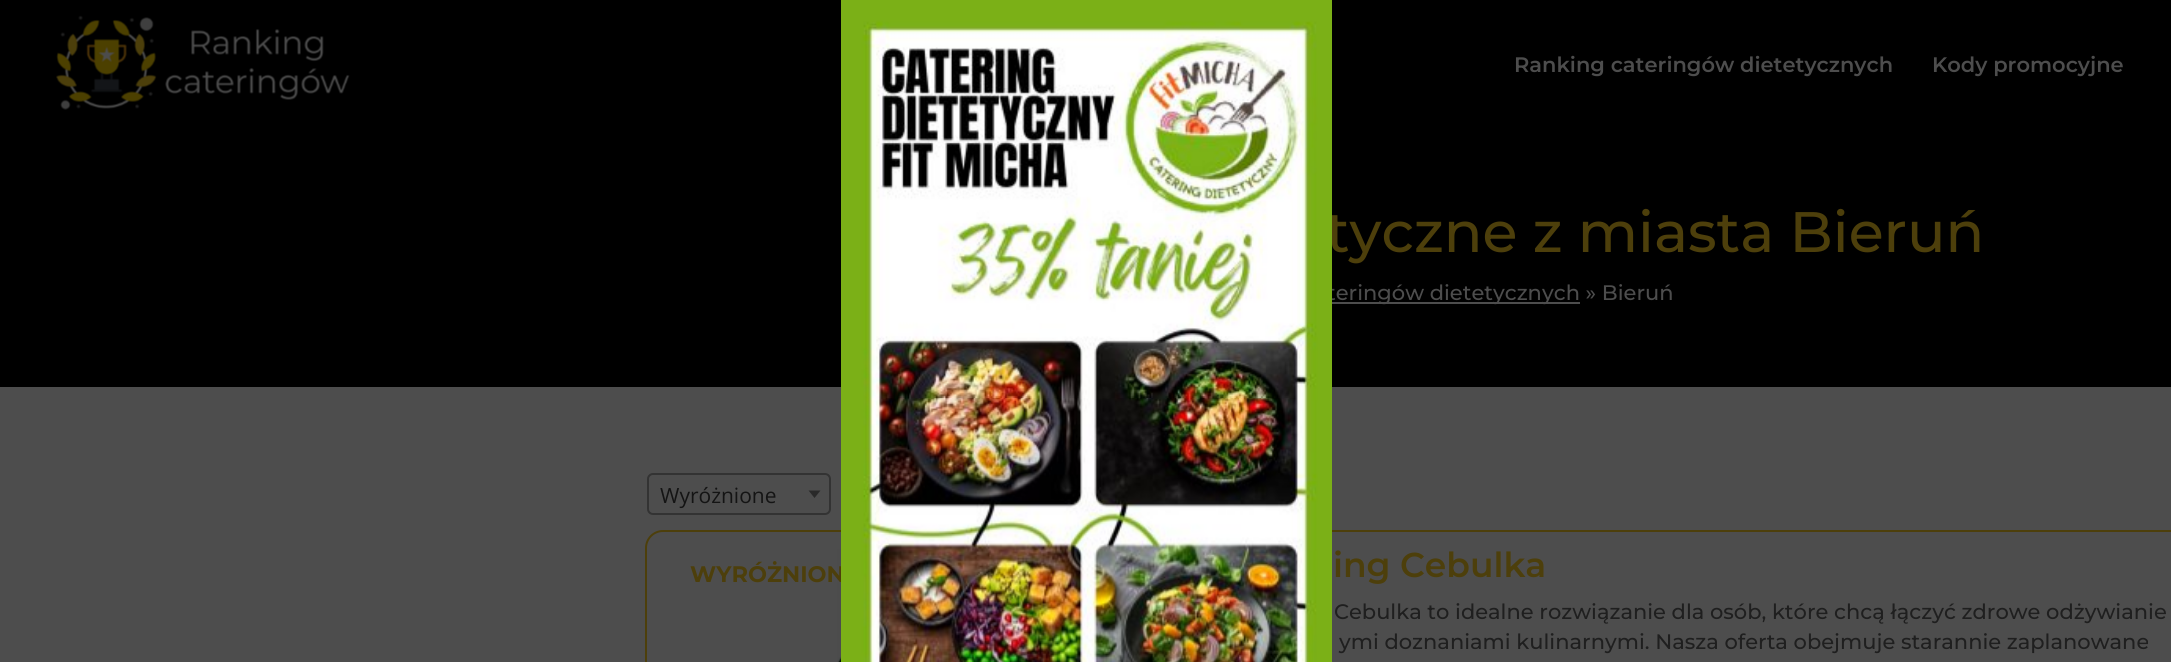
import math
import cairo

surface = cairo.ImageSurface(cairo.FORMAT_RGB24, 2171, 662)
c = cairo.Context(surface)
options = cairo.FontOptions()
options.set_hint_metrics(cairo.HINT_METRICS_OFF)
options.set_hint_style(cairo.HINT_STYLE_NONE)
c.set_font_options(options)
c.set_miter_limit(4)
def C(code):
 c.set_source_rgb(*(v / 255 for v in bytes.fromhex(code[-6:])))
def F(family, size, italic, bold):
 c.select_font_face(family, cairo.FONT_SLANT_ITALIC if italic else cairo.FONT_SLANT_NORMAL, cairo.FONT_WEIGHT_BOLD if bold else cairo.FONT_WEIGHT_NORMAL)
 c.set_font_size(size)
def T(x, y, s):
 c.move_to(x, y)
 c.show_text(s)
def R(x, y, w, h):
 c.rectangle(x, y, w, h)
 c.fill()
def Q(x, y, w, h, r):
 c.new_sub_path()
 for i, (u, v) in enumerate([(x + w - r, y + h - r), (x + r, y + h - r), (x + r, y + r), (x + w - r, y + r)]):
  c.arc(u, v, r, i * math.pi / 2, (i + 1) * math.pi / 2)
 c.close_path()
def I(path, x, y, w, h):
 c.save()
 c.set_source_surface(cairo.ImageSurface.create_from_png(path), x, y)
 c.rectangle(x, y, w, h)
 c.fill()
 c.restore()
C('4d4d4d')
c.paint()
C('000000')
R(0,0,2171,387)
F('Montserrat Thin',57,0,0)
C('4d3f0b')
T(1326,252,'tyczne z miasta Bieruń')
C('4d4d4d')
R(1332,302,248,2)
F('Montserrat Thin',21,0,0)
T(1327,300,'teringów dietetycznych » Bieruń')
Q(646,531,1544,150,17)
C('4d3f0b')
c.stroke()
I('3.png',837,549,4,113)
F('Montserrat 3 Thin',22.5,0,0)
T(690,582,'WYRÓŻNION')
I('1.png',841,0,491,662)
I('2.png',56,15,294,95)
F('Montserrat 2 Thin',21,0,0)
C('4d4d4d')
T(1514,72,'Ranking cateringów dietetycznych')
T(1932,72,'Kody promocyjne')
Q(648,474,182,40,5)
C('333333')
c.stroke()
F('Open Sans',21,0,0)
C('141414')
T(660,503,'Wyróżnione')
C('292929')
c.new_path()
c.move_to(808.5,490.5)
c.line_to(820.5,490.5)
c.line_to(814.5,498)
c.close_path()
c.fill()
F('Montserrat 2 Thin',34.5,0,0)
C('4d3f0b')
T(1333,577,'ing Cebulka')
F('Montserrat Thin',21,0,0)
C('1f1f1f')
T(1334,619,'Cebulka to idealne rozwiązanie dla osób, które chcą łączyć zdrowe odżywianie')
T(1339,649,'ymi doznaniami kulinarnymi. Nasza oferta obejmuje starannie zaplanowane')
surface.write_to_png('o.png')
